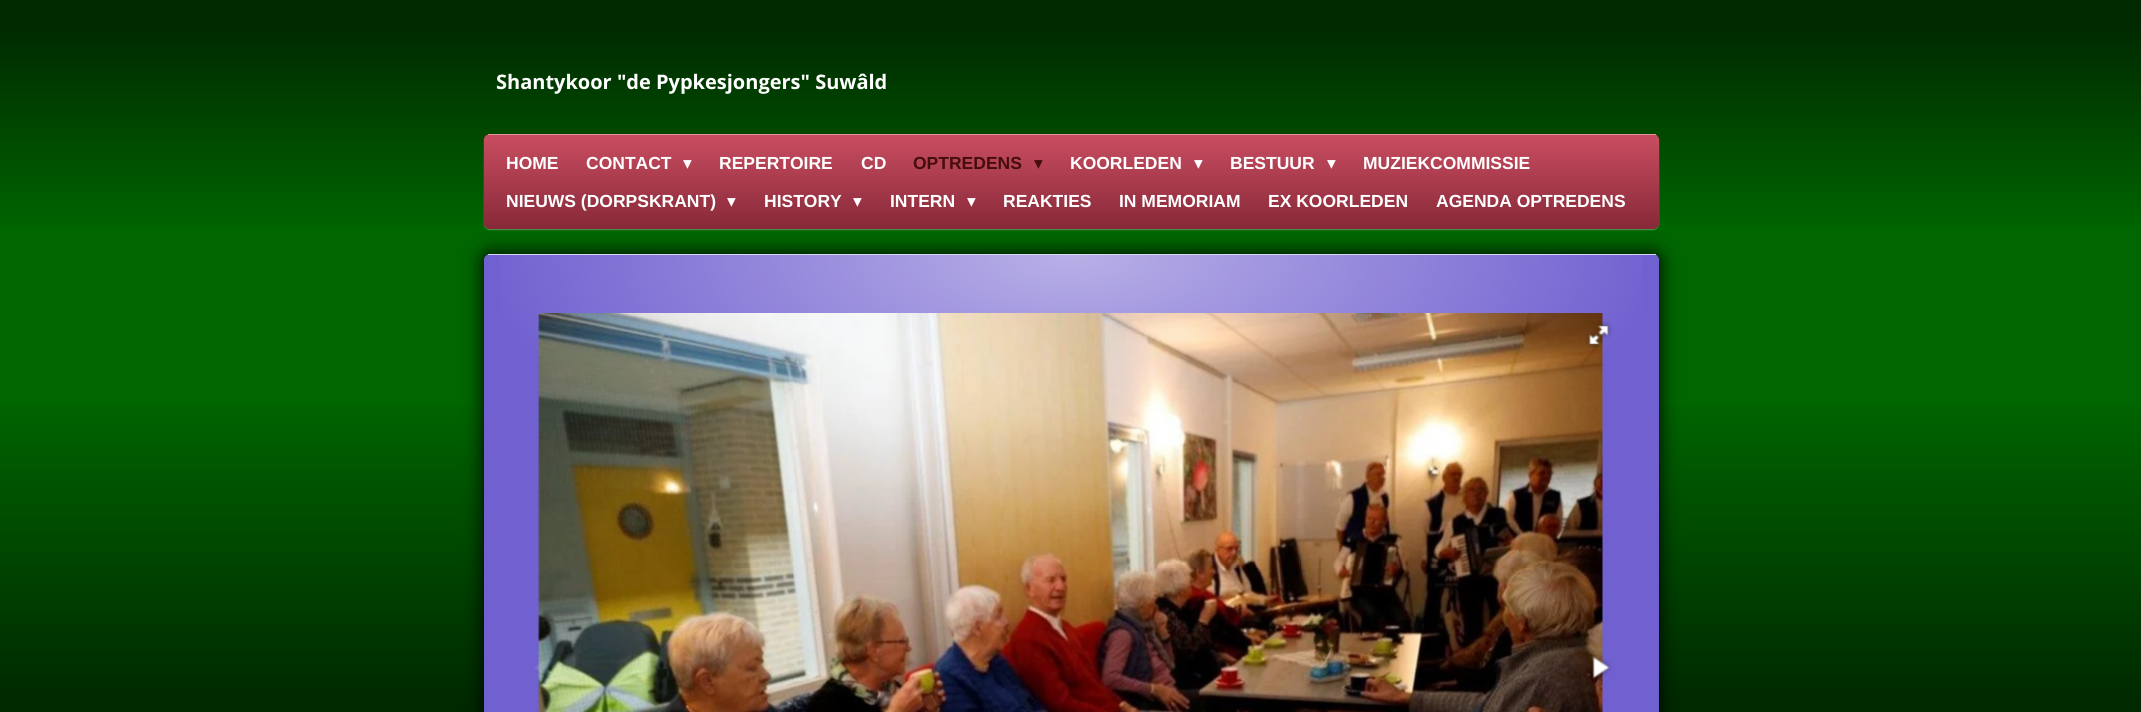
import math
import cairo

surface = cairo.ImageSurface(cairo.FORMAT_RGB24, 2141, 712)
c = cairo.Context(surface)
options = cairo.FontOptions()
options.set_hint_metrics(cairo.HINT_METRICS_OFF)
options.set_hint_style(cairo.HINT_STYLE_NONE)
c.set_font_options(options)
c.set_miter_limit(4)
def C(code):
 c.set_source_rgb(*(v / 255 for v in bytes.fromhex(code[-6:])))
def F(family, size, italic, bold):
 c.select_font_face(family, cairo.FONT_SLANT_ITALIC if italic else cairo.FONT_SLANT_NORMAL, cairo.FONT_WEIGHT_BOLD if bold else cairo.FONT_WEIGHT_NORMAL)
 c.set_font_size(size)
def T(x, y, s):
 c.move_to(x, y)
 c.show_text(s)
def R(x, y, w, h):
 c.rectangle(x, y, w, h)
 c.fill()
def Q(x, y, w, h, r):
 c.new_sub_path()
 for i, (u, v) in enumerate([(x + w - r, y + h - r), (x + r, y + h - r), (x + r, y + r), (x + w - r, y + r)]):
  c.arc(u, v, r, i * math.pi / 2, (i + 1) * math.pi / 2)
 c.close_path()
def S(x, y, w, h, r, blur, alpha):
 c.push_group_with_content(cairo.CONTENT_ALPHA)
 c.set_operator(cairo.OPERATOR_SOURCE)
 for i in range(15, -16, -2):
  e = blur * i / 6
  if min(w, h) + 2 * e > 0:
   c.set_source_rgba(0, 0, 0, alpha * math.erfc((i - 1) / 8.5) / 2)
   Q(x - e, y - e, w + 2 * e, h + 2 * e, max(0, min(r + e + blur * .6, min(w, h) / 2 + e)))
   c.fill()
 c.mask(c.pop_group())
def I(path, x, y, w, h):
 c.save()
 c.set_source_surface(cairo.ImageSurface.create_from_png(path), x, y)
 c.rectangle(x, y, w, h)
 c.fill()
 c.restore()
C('006600')
c.paint()
C('002900')
R(0,0,2141,25)
gradient = cairo.LinearGradient(1071,238,1071,25)
gradient.add_color_stop_rgba(0,0,0.404,0,1)
gradient.add_color_stop_rgba(1,0,0.161,0,1)
c.set_source(gradient)
R(0,25,2141,201)
F('Open Sans',20,0,1)
C('ffffff')
T(496,89,'Shantykoor "de Pypkesjongers" Suwâld')
C('ffffff')
S(484,135,1175,95,6,.5,.3)
C('872938')
Q(484,134,1175,95,6)
c.fill()
c.save()
Q(484,134,1175,95,6)
c.clip()
gradient = cairo.LinearGradient(1071,135,1071,41)
gradient.add_color_stop_rgba(0,0.529,0.161,0.22,1)
gradient.add_color_stop_rgba(1,0.788,0.302,0.38,1)
c.set_source(gradient)
R(484,134,1175,1)
gradient = cairo.LinearGradient(1071,229,1071,135)
gradient.add_color_stop_rgba(0,0.529,0.161,0.22,1)
gradient.add_color_stop_rgba(1,0.788,0.302,0.38,1)
c.set_source(gradient)
c.new_path()
c.move_to(484,135)
c.line_to(1659,135)
c.line_to(1659,223)
c.curve_to(1659,226.5,1656.5,229,1653,229)
c.line_to(490,229)
c.curve_to(486.5,229,484,226.5,484,223)
c.close_path()
c.fill()
c.restore()
C('de939f')
R(488,134,1168,1)
F('Liberation Sans',17.5,0,1)
C('ffffff')
T(506,169,'HOME')
T(586,169,'CONTACT')
F('DejaVu Sans',17.5,0,0)
T(683,169,'▾')
F('Liberation Sans',17.5,0,1)
T(719,169,'REPERTOIRE')
T(861,169,'CD')
C('450d0d')
T(913,169,'OPTREDENS')
F('DejaVu Sans',17.5,0,0)
T(1034,169,'▾')
F('Liberation Sans',17.5,0,1)
C('ffffff')
T(1070,169,'KOORLEDEN')
F('DejaVu Sans',17.5,0,0)
T(1194,169,'▾')
F('Liberation Sans',17.5,0,1)
T(1230,169,'BESTUUR')
F('DejaVu Sans',17.5,0,0)
T(1327,169,'▾')
F('Liberation Sans',17.5,0,1)
T(1363,169,'MUZIEKCOMMISSIE')
T(506,207,'NIEUWS (DORPSKRANT)')
F('DejaVu Sans',17.5,0,0)
T(727,207,'▾')
F('Liberation Sans',17.5,0,1)
T(764,207,'HISTORY')
F('DejaVu Sans',17.5,0,0)
T(853,207,'▾')
F('Liberation Sans',17.5,0,1)
T(890,207,'INTERN')
F('DejaVu Sans',17.5,0,0)
T(967,207,'▾')
F('Liberation Sans',17.5,0,1)
T(1003,207,'REAKTIES')
T(1119,207,'IN MEMORIAM')
T(1268,207,'EX KOORLEDEN')
T(1436,207,'AGENDA OPTREDENS')
gradient = cairo.LinearGradient(1071,700,1071,388)
gradient.add_color_stop_rgba(0,0,0.161,0,1)
gradient.add_color_stop_rgba(1,0,0.404,0,1)
c.set_source(gradient)
R(0,406,2141,294)
C('002900')
R(0,700,2141,12)
C('000000')
S(484,254,1175,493,6,9.5,1)
C('7161d0')
Q(484,254,1175,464,6)
c.fill()
C('dbd7f3')
R(488,254,1168,1)
gradient = cairo.RadialGradient(0,0,0,0,0,1)
gradient.set_matrix(cairo.Matrix(1 / 588, 0, 0, 1 / 250, -1 * 1071 / 588, -1 * 255 / 250))
gradient.add_color_stop_rgba(0,0.722,0.69,0.906,1)
gradient.add_color_stop_rgba(1,0.722,0.69,0.906,0)
c.set_source(gradient)
R(499,255,1144,96)
I('1.png',538,313,1065,399)
I('2.png',1585,321,28,27)
I('3.png',535,658,14,19)
I('4.png',1590,655,22,24)
surface.write_to_png('o.png')
